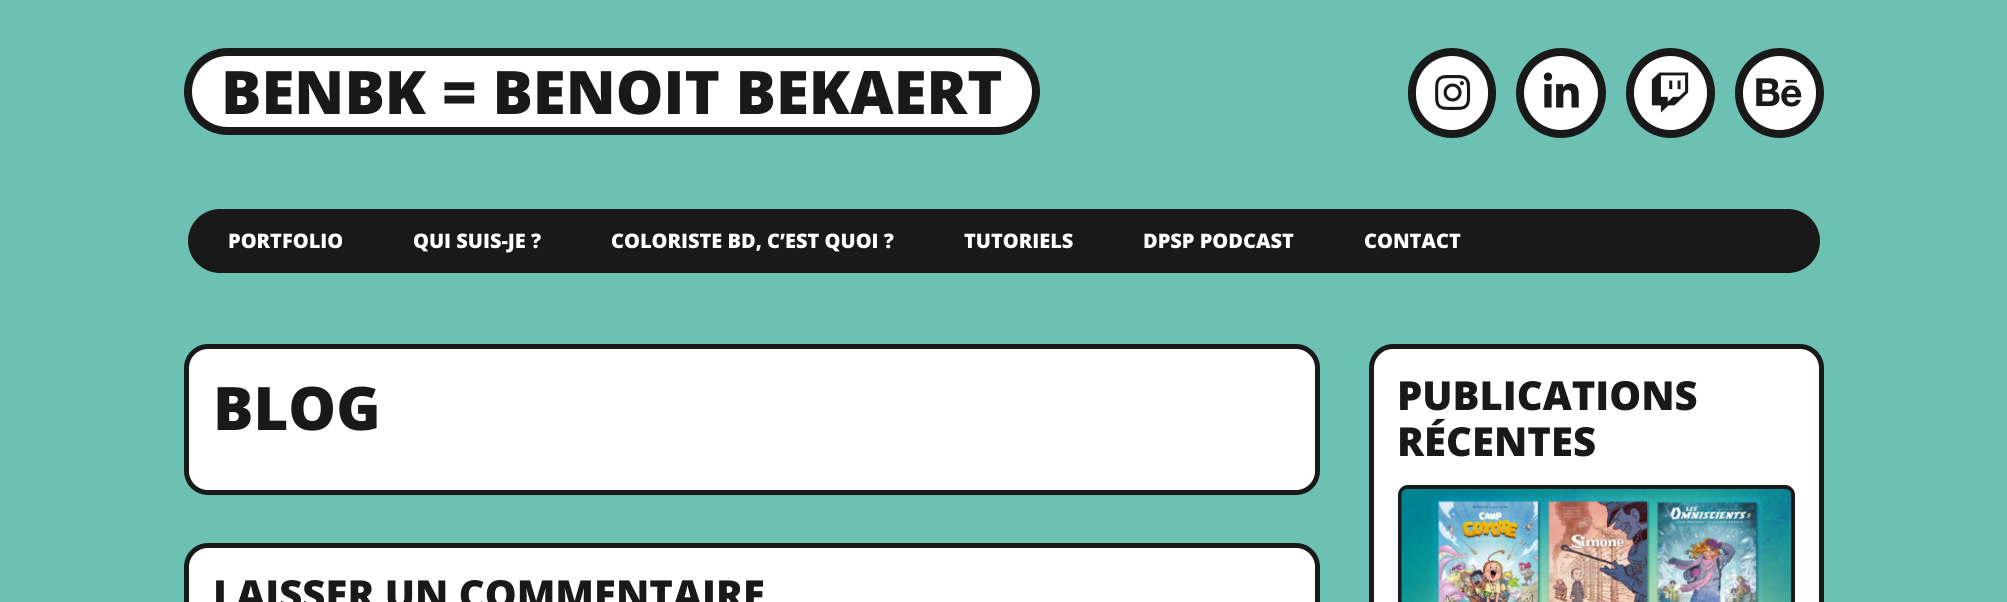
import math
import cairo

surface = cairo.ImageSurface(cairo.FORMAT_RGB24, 2007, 602)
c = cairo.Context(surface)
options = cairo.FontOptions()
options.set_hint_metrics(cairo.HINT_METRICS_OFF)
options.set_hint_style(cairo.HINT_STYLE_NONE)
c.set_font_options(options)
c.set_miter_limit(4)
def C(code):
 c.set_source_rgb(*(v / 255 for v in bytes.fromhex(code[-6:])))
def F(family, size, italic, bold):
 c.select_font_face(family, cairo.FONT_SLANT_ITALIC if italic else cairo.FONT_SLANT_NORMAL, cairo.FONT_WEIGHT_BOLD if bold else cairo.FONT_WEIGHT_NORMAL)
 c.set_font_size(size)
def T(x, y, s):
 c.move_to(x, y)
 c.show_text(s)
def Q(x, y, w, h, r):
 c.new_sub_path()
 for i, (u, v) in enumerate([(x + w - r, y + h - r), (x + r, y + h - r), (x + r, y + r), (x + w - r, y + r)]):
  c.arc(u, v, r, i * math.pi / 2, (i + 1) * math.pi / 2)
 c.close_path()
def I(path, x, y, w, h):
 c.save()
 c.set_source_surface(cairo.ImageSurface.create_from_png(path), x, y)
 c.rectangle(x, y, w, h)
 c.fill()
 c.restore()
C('6cc1b3')
c.paint()
C('ffffff')
Q(188,52,848,79,39.5)
c.fill_preserve()
C('191919')
c.set_line_width(8)
c.stroke()
F('Open Sans ExtraBold',60,0,0)
T(221,114,'BENBK = BENOIT BEKAERT')
C('ffffff')
Q(1412,52,80,82,40)
c.fill_preserve()
C('191919')
c.stroke()
I('1.png',1435,75,36,35)
C('ffffff')
c.arc(1561,93,41,0,2 * math.pi)
c.fill_preserve()
C('191919')
c.stroke()
I('2.png',1543,72,36,36)
C('ffffff')
Q(1630,52,81,82,40.5)
c.fill_preserve()
C('191919')
c.stroke()
I('3.png',1651,72,38,41)
C('ffffff')
Q(1739,52,81,82,40.5)
c.fill_preserve()
C('191919')
c.stroke()
I('4.png',1756,78,46,29)
Q(188,209,1632,64,32)
c.fill()
F('Open Sans ExtraBold',20,0,0)
C('ffffff')
T(228,248,'PORTFOLIO')
T(413,248,'QUI SUIS-JE ?')
T(611,248,'COLORISTE BD, C’EST QUOI ?')
T(964,248,'TUTORIELS')
T(1143,248,'DPSP PODCAST')
T(1364,248,'CONTACT')
Q(186.5,346.5,1131,146,21.5)
c.fill_preserve()
C('191919')
c.set_line_width(5)
c.stroke()
F('Open Sans ExtraBold',60,0,0)
T(213,430,'BLOG')
C('ffffff')
Q(186.5,545.5,1131,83,21.5)
c.fill_preserve()
C('191919')
c.stroke()
F('Open Sans ExtraBold',40,0,0)
T(213,609,'LAISSER UN COMMENTAIRE')
C('ffffff')
Q(1371.5,346.5,450,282,21.5)
c.fill_preserve()
C('191919')
c.stroke()
T(1397,410,'PUBLICATIONS')
T(1397,456,'RÉCENTES')
Q(1400,487,393,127,8)
c.set_line_width(4)
c.stroke()
c.new_path()
c.move_to(1407,489)
c.line_to(1785,489)
c.curve_to(1788.5,489,1791,491.5,1791,495)
c.line_to(1791,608)
c.line_to(1401,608)
c.line_to(1401,495)
c.curve_to(1401,491.5,1403.5,489,1407,489)
c.close_path()
c.fill()
I('5.png',1401,488,391,114)
surface.write_to_png('o.png')
